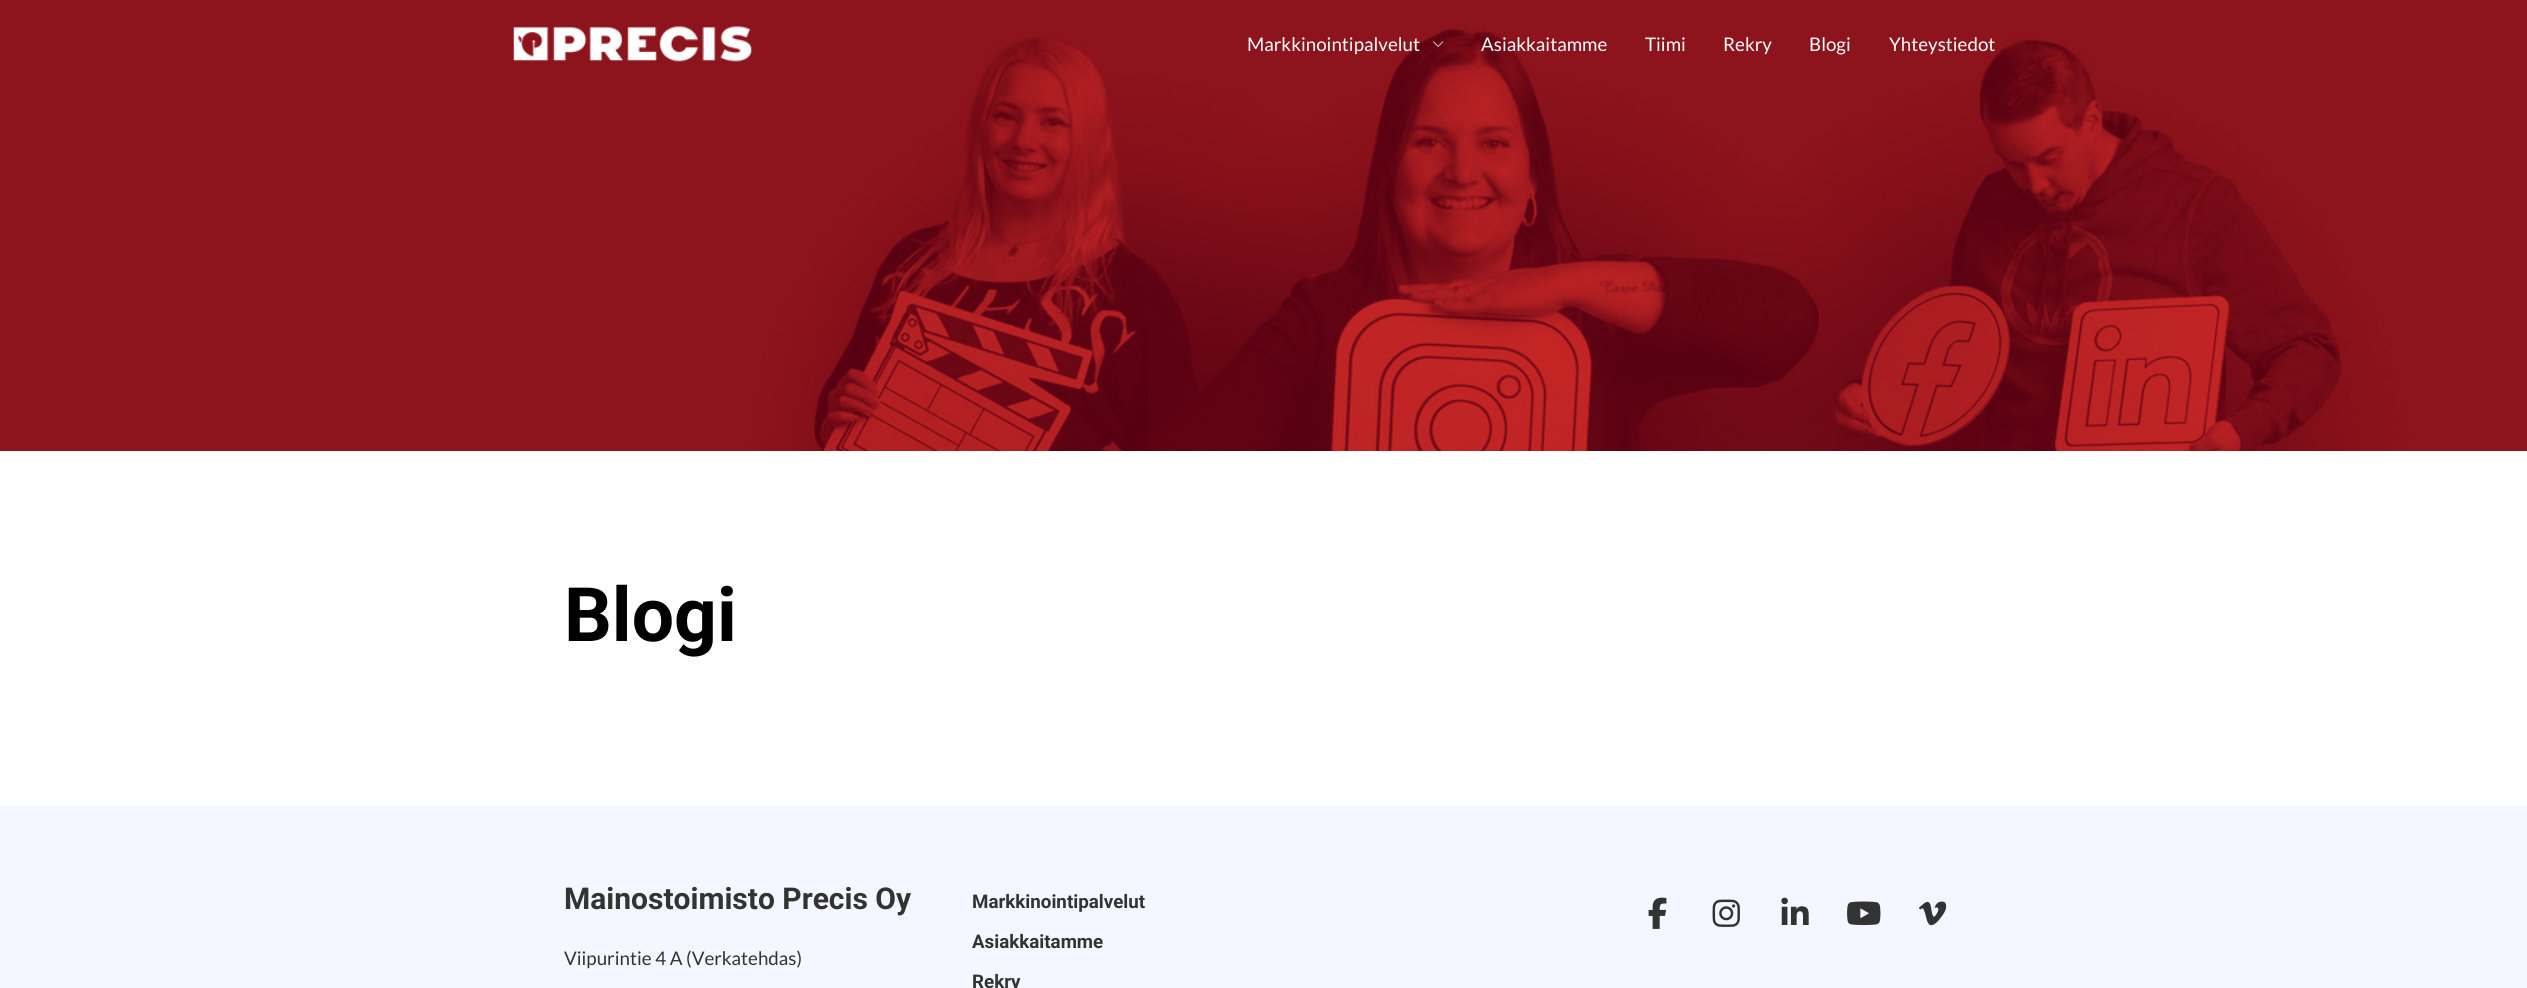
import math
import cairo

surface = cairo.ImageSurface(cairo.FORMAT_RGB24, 2527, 988)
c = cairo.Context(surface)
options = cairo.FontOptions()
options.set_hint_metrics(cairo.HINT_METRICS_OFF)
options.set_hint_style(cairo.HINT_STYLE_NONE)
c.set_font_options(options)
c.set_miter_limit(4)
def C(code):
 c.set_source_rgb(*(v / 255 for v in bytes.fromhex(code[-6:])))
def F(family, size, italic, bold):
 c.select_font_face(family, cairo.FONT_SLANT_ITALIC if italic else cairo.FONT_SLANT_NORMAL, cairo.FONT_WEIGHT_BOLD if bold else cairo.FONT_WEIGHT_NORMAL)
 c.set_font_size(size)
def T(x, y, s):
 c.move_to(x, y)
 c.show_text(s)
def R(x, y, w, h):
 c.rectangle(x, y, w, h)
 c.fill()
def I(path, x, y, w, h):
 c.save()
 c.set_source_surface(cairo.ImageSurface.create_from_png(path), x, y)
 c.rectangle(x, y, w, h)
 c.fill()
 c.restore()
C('8d141d')
c.paint()
I('3.png',63,28,2401,423)
I('1.png',513,26,239,36)
F('Lato',18.75,0,0)
C('ffffff')
T(1247,51,'Markkinointipalvelut')
I('2.png',1433,41,11,6)
T(1481,51,'Asiakkaitamme')
T(1645,51,'Tiimi')
T(1723,51,'Rekry')
T(1809,51,'Blogi')
T(1889,51,'Yhteystiedot')
R(0,451,2527,355)
F('Roboto',75,0,1)
C('000000')
T(564,641,'Blogi')
C('f4f7ff')
R(0,806,2527,182)
F('Roboto',30,0,1)
C('333333')
T(564,909,'Mainostoimisto Precis Oy')
F('Lato',18.75,0,0)
T(564,965,'Viipurintie 4 A (Verkatehdas)')
F('Roboto',18.75,0,1)
T(972,908,'Markkinointipalvelut')
T(972,948,'Asiakkaitamme')
T(972,988,'Rekry')
I('4.png',1648,897,19,32)
I('5.png',1712,899,28,28)
I('6.png',1781,897,28,28)
I('7.png',1847,901,34,24)
I('8.png',1918,901,29,25)
surface.write_to_png('o.png')
